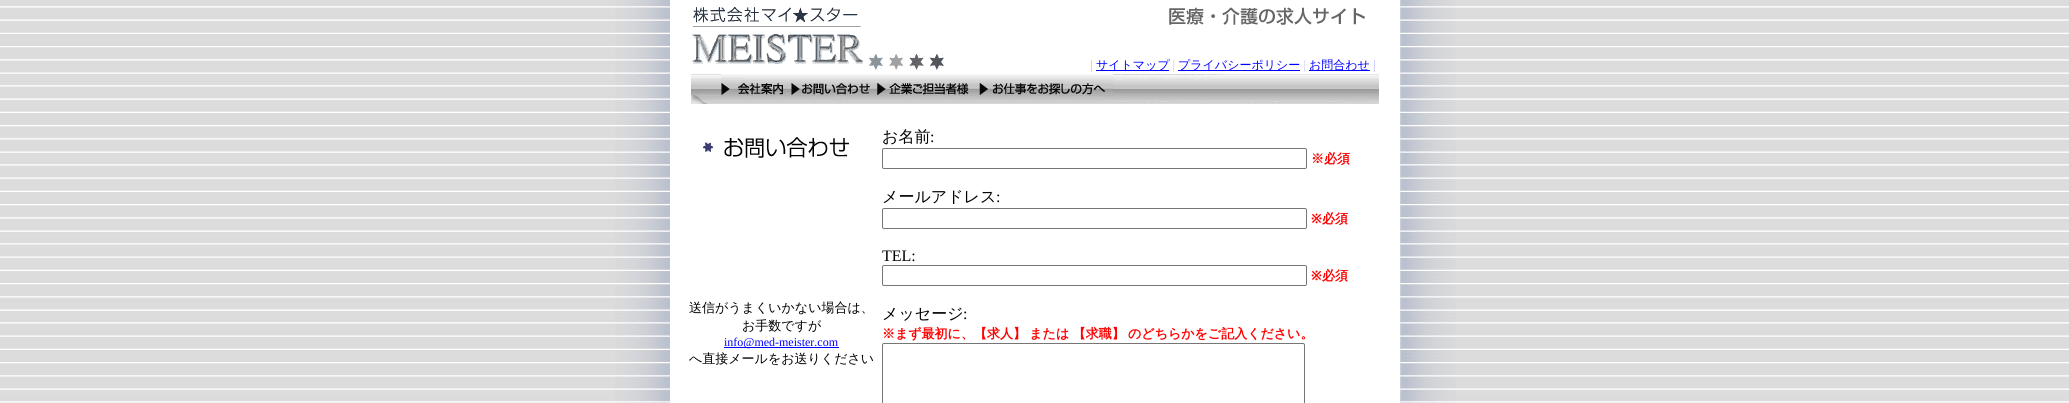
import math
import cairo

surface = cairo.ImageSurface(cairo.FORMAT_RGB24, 2069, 403)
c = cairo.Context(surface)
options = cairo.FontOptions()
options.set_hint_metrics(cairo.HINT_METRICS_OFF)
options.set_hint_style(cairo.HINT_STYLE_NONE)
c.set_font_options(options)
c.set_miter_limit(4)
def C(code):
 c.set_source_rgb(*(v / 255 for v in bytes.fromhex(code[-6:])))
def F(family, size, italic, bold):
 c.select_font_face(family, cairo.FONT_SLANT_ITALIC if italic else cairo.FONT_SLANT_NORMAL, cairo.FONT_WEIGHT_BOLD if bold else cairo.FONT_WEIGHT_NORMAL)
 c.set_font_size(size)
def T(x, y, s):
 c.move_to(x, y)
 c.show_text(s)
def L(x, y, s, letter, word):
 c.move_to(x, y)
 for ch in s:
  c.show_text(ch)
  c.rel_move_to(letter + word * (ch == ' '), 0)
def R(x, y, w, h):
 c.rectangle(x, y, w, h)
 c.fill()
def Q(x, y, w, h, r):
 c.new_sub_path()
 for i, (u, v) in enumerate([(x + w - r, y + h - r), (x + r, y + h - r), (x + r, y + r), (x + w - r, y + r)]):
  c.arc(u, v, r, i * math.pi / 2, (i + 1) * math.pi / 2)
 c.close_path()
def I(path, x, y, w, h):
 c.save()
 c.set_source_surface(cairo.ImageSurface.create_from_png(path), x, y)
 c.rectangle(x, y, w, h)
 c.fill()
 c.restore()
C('ffffff')
c.paint()
I('1.png',0,0,2069,403)
I('2.png',615,0,55,403)
C('ffffff')
R(670,0,730,403)
I('3.png',692,7,171,57)
I('4.png',867,54,80,16)
I('5.png',1169,7,196,18)
F('Liberation Serif',13,0,1)
C('ccccff')
T(1090,69,'|')
C('0000ff')
R(1096,70,73,1)
F('WenQuanYi Zen Hei Medium',12,0,0)
T(1096,69,'サイトマップ')
F('Liberation Serif',13,0,0)
C('ccccff')
T(1172,69,'|')
C('0000ff')
R(1178,70,122,1)
F('WenQuanYi Zen Hei Medium',12,0,0)
T(1178,69,'プライバシーポリシー')
F('Liberation Serif',13,0,0)
C('ccccff')
T(1303,69,'|')
C('0000ff')
R(1309,70,61,1)
F('WenQuanYi Zen Hei Medium',12,0,0)
T(1309,69,'お問合わせ')
F('Liberation Serif',13,0,1)
C('ccccff')
T(1373,69,'|')
I('6.png',691,74,688,30)
I('7.png',721,74,70,29)
I('8.png',791,74,86,29)
I('9.png',877,74,102,29)
I('10.png',979,74,134,29)
I('11.png',702,137,147,21)
F('WenQuanYi Zen Hei Medium',13,0,0)
C('000000')
T(689,312,'送信がうまくいかない場合は、')
T(742,330,'お手数ですが')
C('0000ff')
R(724,347,115,1)
F('Liberation Serif',12,0,0)
T(724,346,'info@med-meister.com')
F('WenQuanYi Zen Hei Medium',13,0,0)
C('000000')
T(689,363,'へ直接メールをお送りください')
F('WenQuanYi Zen Hei Medium',16,0,0)
T(882,142,'お名前')
F('Liberation Serif',16,0,0)
T(930,142,':')
Q(882.5,148.5,424,20,1.5)
C('767676')
c.set_line_width(1)
c.stroke()
F('WenQuanYi Zen Hei',13,0,1)
C('ff0000')
T(1311,163,'※必須')
F('WenQuanYi Zen Hei Medium',16,0,0)
C('000000')
T(882,202,'メールアドレス')
F('Liberation Serif',16,0,0)
T(996,202,':')
Q(882.5,208.5,424,20,1.5)
C('767676')
c.stroke()
F('Noto Sans',13,0,1)
C('ff0000')
T(1311,223,'※')
F('WenQuanYi Zen Hei',13,0,1)
T(1322,223,'必須')
F('Liberation Serif',16,0,0)
C('000000')
T(882,261,'TEL:')
Q(882.5,265.5,424,20,1.5)
C('767676')
c.stroke()
F('Noto Sans',13,0,1)
C('ff0000')
T(1311,280,'※')
F('WenQuanYi Zen Hei',13,0,1)
T(1322,280,'必須')
F('WenQuanYi Zen Hei Medium',16,0,0)
C('000000')
T(882,319,'メッセージ')
F('Liberation Serif',16,0,0)
T(963,319,':')
F('WenQuanYi Zen Hei',13,0,1)
C('ff0000')
L(882,338,'※まず最初に、【求人】 または 【求職】 のどちらかをご記入ください。',0,-.5)
Q(882.5,343.5,422,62,1.5)
C('767676')
c.stroke()
I('12.png',1400,0,56,403)
surface.write_to_png('o.png')
